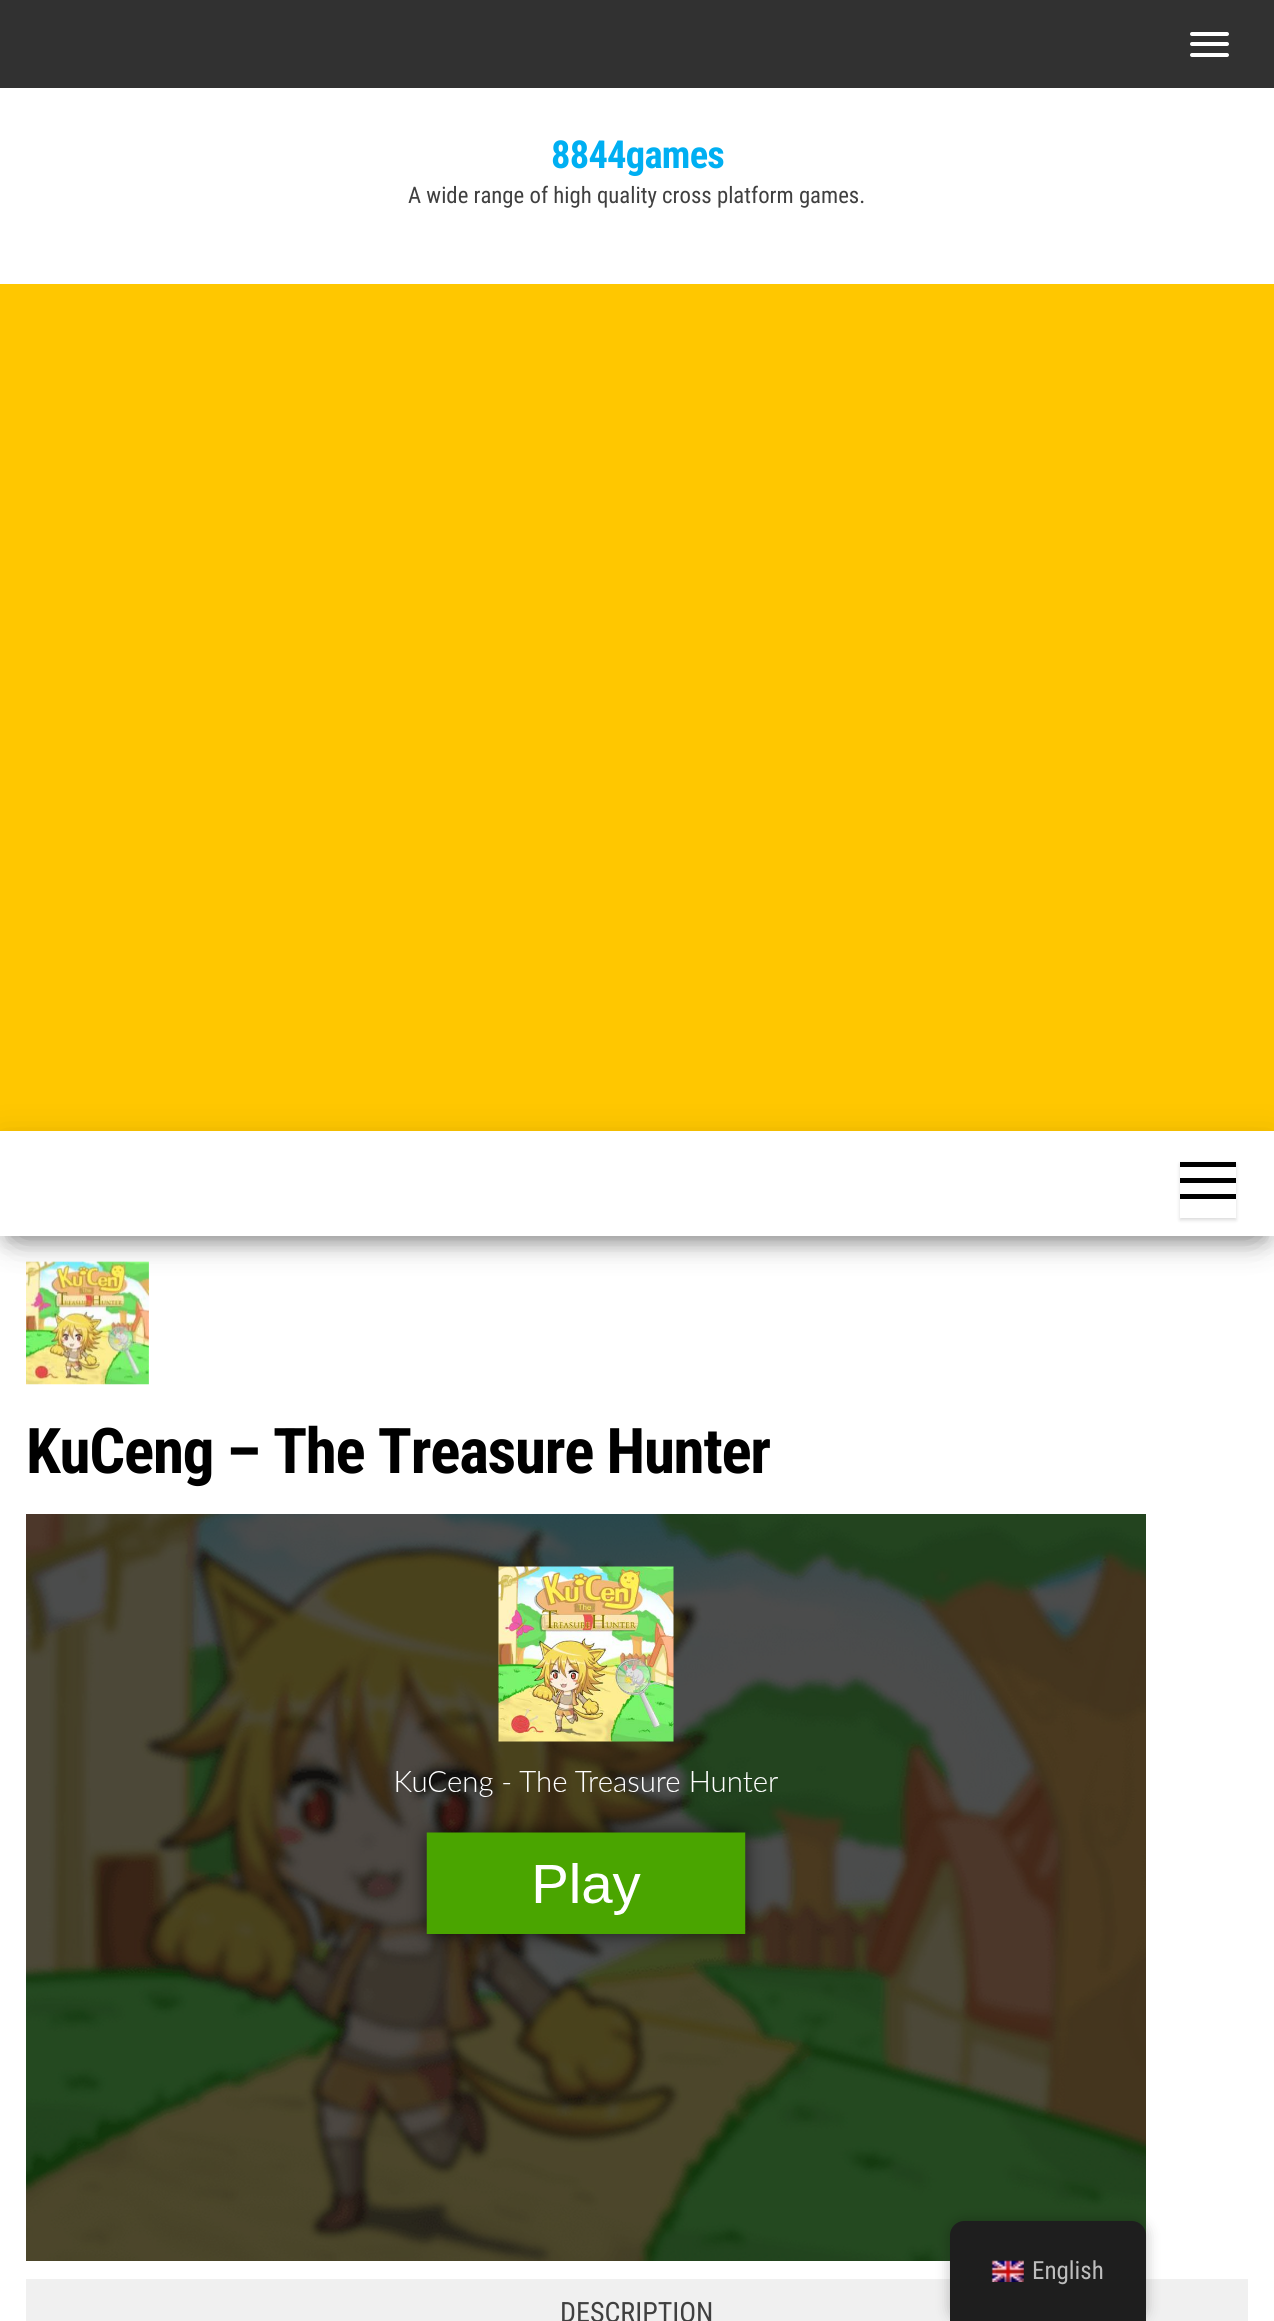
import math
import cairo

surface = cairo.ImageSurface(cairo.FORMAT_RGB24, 1274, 2321)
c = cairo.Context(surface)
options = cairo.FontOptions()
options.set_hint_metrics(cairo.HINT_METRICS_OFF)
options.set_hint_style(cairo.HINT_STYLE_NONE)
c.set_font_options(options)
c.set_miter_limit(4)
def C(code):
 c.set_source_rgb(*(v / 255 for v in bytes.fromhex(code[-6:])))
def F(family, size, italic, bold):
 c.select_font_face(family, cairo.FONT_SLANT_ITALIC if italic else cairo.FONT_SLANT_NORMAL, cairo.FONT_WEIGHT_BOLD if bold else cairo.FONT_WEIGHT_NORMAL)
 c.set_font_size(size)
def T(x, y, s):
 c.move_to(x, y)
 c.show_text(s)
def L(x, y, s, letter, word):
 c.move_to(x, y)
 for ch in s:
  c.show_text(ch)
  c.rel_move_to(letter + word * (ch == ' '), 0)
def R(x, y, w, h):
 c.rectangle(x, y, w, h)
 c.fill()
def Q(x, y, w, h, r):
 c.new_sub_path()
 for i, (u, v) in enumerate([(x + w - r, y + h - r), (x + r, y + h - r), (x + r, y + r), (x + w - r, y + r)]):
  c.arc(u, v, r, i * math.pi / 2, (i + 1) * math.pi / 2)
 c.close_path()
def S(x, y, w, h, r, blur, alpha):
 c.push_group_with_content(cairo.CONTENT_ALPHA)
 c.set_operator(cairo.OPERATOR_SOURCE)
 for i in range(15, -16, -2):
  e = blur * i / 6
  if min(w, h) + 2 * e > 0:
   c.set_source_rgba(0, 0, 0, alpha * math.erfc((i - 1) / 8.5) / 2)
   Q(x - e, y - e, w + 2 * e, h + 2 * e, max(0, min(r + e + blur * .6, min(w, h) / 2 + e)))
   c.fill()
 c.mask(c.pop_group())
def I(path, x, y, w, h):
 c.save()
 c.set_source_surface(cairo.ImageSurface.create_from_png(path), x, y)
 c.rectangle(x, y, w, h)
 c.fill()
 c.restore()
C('ffc700')
c.paint()
C('313131')
R(0,0,1274,88)
C('ffffff')
Q(1190,32,39,4,2)
c.fill()
Q(1190,42,39,4,2)
c.fill()
Q(1190,53,39,4,2)
c.fill()
R(0,88,1274,196)
F('Roboto Condensed',38.5,0,1)
C('00aff2')
L(551,168,'8844games',-.75,0)
F('Roboto Condensed',22.75,0,0)
C('404040')
T(408,203,'A wide range of high quality cross platform games.')
C('ffffff')
R(0,1236,1274,1085)
C('000000')
S(9,1153,1256,88,0,9,.2)
S(0,1136,1274,105,0,17.5,.12)
S(21,1169,1232,63,0,17.5,.42)
C('ffffff')
R(0,1131,1274,105)
c.save()
c.set_fill_rule(cairo.FILL_RULE_EVEN_ODD)
c.new_path()
c.move_to(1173,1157)
c.line_to(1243,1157)
c.line_to(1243,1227)
c.line_to(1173,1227)
c.close_path()
c.move_to(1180,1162)
c.line_to(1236,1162)
c.line_to(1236,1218)
c.line_to(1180,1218)
c.close_path()
c.clip()
C('000000')
S(1180,1164,56,56,0,2,.15)
c.restore()
C('000000')
R(1180,1162,56,5)
R(1180,1178,56,5)
R(1180,1194,56,5)
I('1.png',26,1261,123,124)
F('Roboto Condensed',63,0,1)
L(26,1473,'KuCeng – The Treasure Hunter',-1.25,0)
I('2.png',26,1514,1120,747)
C('f0f0f0')
R(26,2279,1222,42)
F('Roboto Condensed',28,0,0)
C('404040')
T(560,2322,'DESCRIPTION')
C('000000')
S(950,2221,196,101,14,7,.25)
C('1e1e1e')
c.new_path()
c.move_to(964,2221)
c.line_to(1132,2221)
c.curve_to(1139.5,2221,1146,2227.5,1146,2235)
c.line_to(1146,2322)
c.line_to(950,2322)
c.line_to(950,2235)
c.curve_to(950,2227.5,956.5,2221,964,2221)
c.close_path()
c.fill()
I('3.png',991,2260,33,22)
F('Roboto Condensed',25,0,0)
C('bdbdbd')
T(1032,2279,'English')
surface.write_to_png('o.png')
